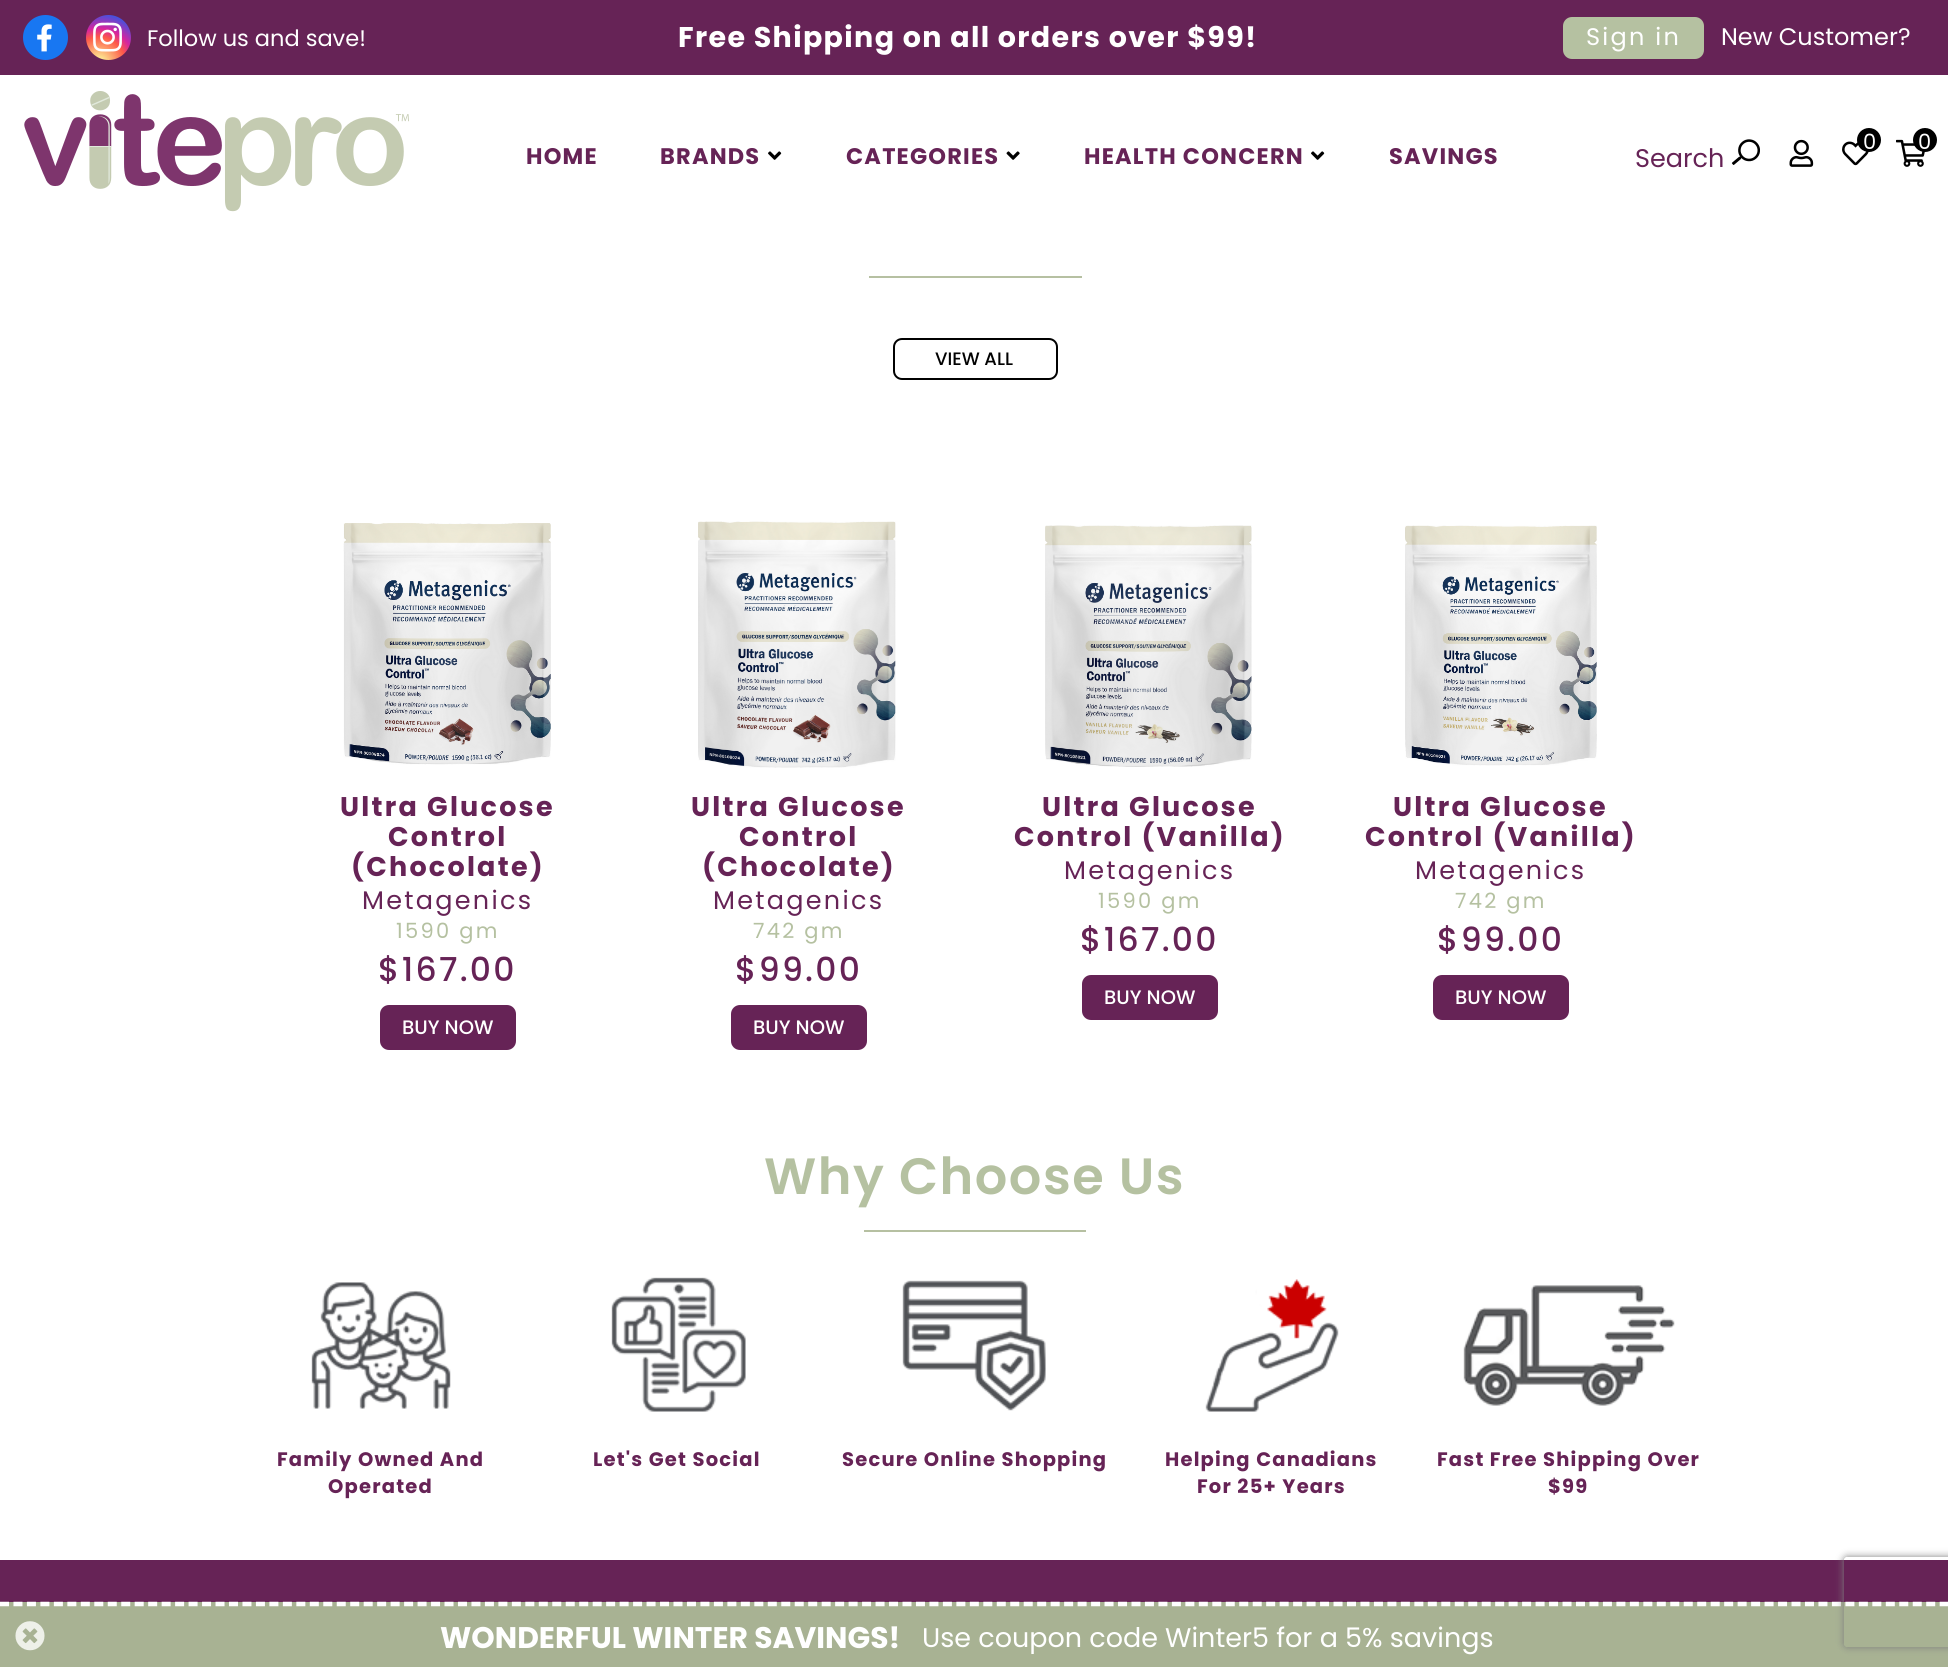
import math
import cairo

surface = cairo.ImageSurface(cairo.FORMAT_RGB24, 1948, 1667)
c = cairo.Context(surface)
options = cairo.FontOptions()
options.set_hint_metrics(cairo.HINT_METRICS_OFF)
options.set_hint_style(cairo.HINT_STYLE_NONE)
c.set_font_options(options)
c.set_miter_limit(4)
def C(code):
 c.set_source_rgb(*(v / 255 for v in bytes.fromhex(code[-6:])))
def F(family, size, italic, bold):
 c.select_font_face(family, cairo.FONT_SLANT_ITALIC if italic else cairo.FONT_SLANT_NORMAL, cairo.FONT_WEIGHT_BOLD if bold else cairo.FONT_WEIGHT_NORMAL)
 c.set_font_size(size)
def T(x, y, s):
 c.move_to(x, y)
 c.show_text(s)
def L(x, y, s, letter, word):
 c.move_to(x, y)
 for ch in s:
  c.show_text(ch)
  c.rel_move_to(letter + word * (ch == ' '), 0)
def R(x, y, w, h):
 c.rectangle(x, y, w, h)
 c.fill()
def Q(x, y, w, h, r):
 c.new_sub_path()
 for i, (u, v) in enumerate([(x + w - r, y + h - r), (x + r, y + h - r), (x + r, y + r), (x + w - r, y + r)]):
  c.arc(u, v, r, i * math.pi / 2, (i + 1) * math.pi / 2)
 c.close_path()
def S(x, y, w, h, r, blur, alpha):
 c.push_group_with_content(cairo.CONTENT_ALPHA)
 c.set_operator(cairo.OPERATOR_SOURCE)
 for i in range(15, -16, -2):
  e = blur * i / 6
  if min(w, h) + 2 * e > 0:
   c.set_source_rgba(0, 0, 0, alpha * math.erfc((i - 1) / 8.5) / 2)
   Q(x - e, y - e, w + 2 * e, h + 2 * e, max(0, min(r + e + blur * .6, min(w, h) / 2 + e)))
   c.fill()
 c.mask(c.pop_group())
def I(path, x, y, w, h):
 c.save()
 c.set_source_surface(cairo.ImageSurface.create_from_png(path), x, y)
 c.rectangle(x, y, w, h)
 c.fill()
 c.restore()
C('ffffff')
c.paint()
C('662356')
R(0,0,1948,75)
C('1877f2')
c.arc(45.5,37.5,22.5,0,2 * math.pi)
c.fill()
I('1.png',37,24,15,28)
gradient = cairo.RadialGradient(99,63,0,99,63,58)
gradient.add_color_stop_rgba(0,0.992,0.957,0.592,1)
gradient.add_color_stop_rgba(.05,0.992,0.957,0.592,1)
gradient.add_color_stop_rgba(.45,0.992,0.349,0.286,1)
gradient.add_color_stop_rgba(.6,0.839,0.141,0.624,1)
gradient.add_color_stop_rgba(.9,0.157,0.353,0.922,1)
c.set_source(gradient)
c.arc(108.5,37.5,22.5,0,2 * math.pi)
c.fill()
I('2.png',93,22,29,30)
F('Poppins',22.5,0,0)
C('ffffff')
T(147,46,'Follow us and save!')
F('Poppins',28.5,0,1)
L(678,47,'Free Shipping on all orders over $99!',1.35,0)
C('b5c1a1')
Q(1563,17,141,42,9)
c.fill()
F('Poppins',24,0,0)
C('ffffff')
L(1586,45,'Sign in',2.25,0)
T(1721,45,'New Customer?')
I('3.png',24,91,385,121)
F('Poppins',22.5,0,1)
C('662356')
L(526,164,'HOME',1.2,0)
L(660,164,'BRANDS',1.2,0)
I('4.png',768,151,14,9)
L(846,164,'CATEGORIES',1.2,0)
I('5.png',1006,151,14,9)
L(1084,164,'HEALTH CONCERN',1.2,0)
I('4.png',1311,151,14,9)
L(1389,164,'SAVINGS',1.2,0)
F('Poppins',25.5,0,0)
T(1635,167,'Search')
I('6.png',1731,139,29,26)
I('7.png',1789,139,25,28)
I('8.png',1842,141,27,25)
C('000000')
c.arc(1869,140,12,0,2 * math.pi)
c.fill()
F('Poppins',21,0,0)
C('ffffff')
T(1863,149,'0')
I('9.png',1896,139,29,28)
C('000000')
c.arc(1925,140,12,0,2 * math.pi)
c.fill()
C('ffffff')
T(1918,149,'0')
C('b6c0a2')
R(869,276,213,2)
Q(894,339,163,40,8)
C('010101')
c.stroke()
F('Poppins Medium',18,0,0)
T(935,365,'VIEW ALL')
I('10.png',343,523,208,242)
F('Poppins',27,0,1)
C('662356')
L(340,816,'Ultra Glucose',2.25,0)
L(388,846,'Control',2.25,0)
L(351,876,'(Chocolate)',2.25,0)
F('Poppins',25.5,0,0)
L(362,909,'Metagenics',2.25,0)
F('Poppins',21,0,0)
C('b5c1a1')
L(396,938,'1590 gm',2.25,0)
F('Poppins Medium',33,0,0)
C('662356')
L(378,981,'$167.00',2.25,0)
Q(380,1005,136,45,9)
c.fill()
F('Poppins Medium',19.5,0,0)
C('ffffff')
T(402,1034,'BUY NOW')
I('11.png',698,521,198,247)
F('Poppins',27,0,1)
C('662356')
L(691,816,'Ultra Glucose',2.25,0)
L(739,846,'Control',2.25,0)
L(702,876,'(Chocolate)',2.25,0)
F('Poppins',25.5,0,0)
L(713,909,'Metagenics',2.25,0)
F('Poppins',21,0,0)
C('b5c1a1')
L(753,938,'742 gm',2.25,0)
F('Poppins Medium',33,0,0)
C('662356')
L(735,981,'$99.00',2.25,0)
Q(731,1005,136,45,9)
c.fill()
F('Poppins Medium',19.5,0,0)
C('ffffff')
T(753,1034,'BUY NOW')
I('12.png',1045,525,207,242)
F('Poppins',27,0,1)
C('662356')
L(1042,816,'Ultra Glucose',2.25,0)
L(1014,846,'Control (Vanilla)',2.25,0)
F('Poppins',25.5,0,0)
L(1064,879,'Metagenics',2.25,0)
F('Poppins',21,0,0)
C('b5c1a1')
L(1098,908,'1590 gm',2.25,0)
F('Poppins Medium',33,0,0)
C('662356')
L(1080,951,'$167.00',2.25,0)
Q(1082,975,136,45,9)
c.fill()
F('Poppins Medium',19.5,0,0)
C('ffffff')
T(1104,1004,'BUY NOW')
I('13.png',1405,525,192,241)
F('Poppins',27,0,1)
C('662356')
L(1393,816,'Ultra Glucose',2.25,0)
L(1365,846,'Control (Vanilla)',2.25,0)
F('Poppins',25.5,0,0)
L(1415,879,'Metagenics',2.25,0)
F('Poppins',21,0,0)
C('b5c1a1')
L(1455,908,'742 gm',2.25,0)
F('Poppins Medium',33,0,0)
C('662356')
L(1437,951,'$99.00',2.25,0)
Q(1433,975,136,45,9)
c.fill()
F('Poppins Medium',19.5,0,0)
C('ffffff')
T(1455,1004,'BUY NOW')
F('Poppins SemiBold',51,0,0)
C('b5c1a1')
L(764,1194,'Why Choose Us',1.5,0)
C('b6c0a2')
R(864,1230,222,2)
I('14.png',311,1282,140,127)
F('Poppins',19.5,0,1)
C('662356')
L(277,1466,'Family Owned And',1.2,0)
L(328,1493,'Operated',1.2,0)
I('15.png',611,1277,135,135)
L(593,1466,'Let\'s Get Social',1.2,0)
I('16.png',902,1280,144,131)
L(842,1466,'Secure Online Shopping',1.2,0)
I('17.png',1205,1279,134,133)
L(1165,1466,'Helping Canadians',1.2,0)
L(1197,1493,'For 25+ Years',1.2,0)
I('18.png',1463,1285,212,121)
L(1437,1466,'Fast Free Shipping Over',1.2,0)
L(1548,1493,'$99',1.2,0)
R(0,1560,1948,42)
C('a8b293')
R(0,1602,1948,65)
c.new_path()
c.move_to(0,1604)
c.line_to(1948.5,1604)
C('ffffff')
c.set_line_width(4.5)
c.set_dash([9,4.47])
c.stroke()
c.save()
c.set_fill_rule(cairo.FILL_RULE_EVEN_ODD)
c.new_path()
c.move_to(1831,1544)
c.line_to(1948,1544)
c.line_to(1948,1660)
c.line_to(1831,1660)
c.close_path()
c.move_to(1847,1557)
c.line_to(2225,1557)
c.curve_to(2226.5,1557,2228,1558.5,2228,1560)
c.line_to(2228,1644)
c.curve_to(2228,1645.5,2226.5,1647,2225,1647)
c.line_to(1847,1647)
c.curve_to(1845.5,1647,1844,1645.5,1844,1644)
c.line_to(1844,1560)
c.curve_to(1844,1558.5,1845.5,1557,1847,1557)
c.close_path()
c.clip()
C('808080')
S(1844,1557,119,90,3,4,1)
c.restore()
I('19.png',15,1621,30,30)
F('Poppins',29.8,0,1)
T(440,1648,'WONDERFUL WINTER SAVINGS!')
F('Poppins',27,0,0)
T(922,1647,'Use coupon code Winter5 for a 5% savings')
surface.write_to_png('o.png')
